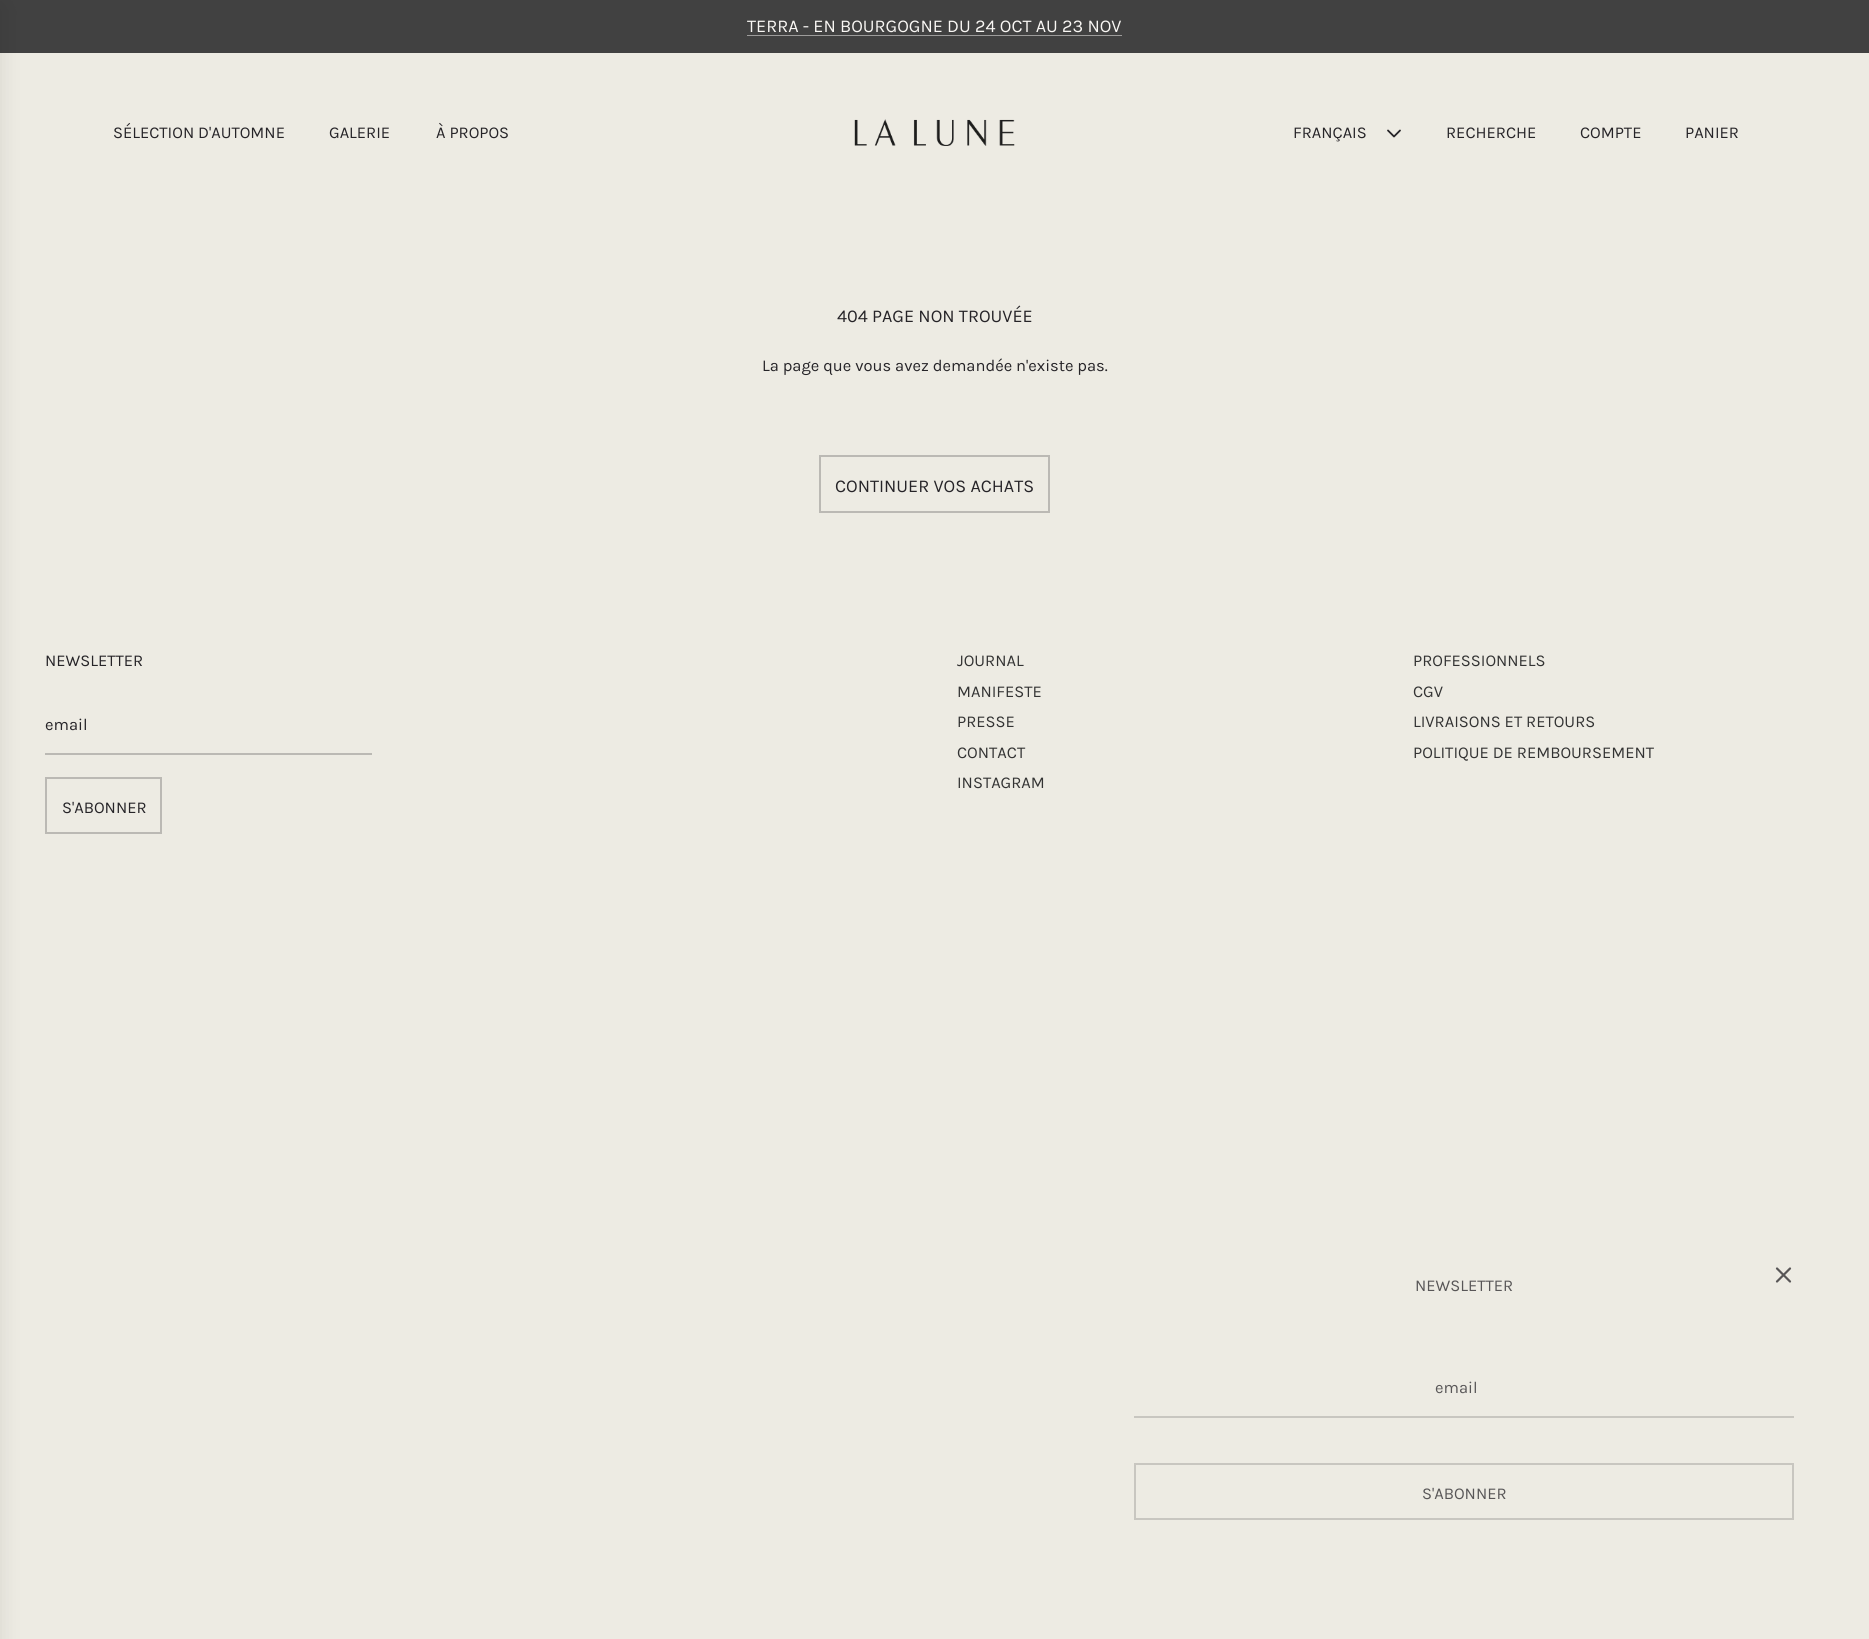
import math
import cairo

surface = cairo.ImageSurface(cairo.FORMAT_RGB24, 1869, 1639)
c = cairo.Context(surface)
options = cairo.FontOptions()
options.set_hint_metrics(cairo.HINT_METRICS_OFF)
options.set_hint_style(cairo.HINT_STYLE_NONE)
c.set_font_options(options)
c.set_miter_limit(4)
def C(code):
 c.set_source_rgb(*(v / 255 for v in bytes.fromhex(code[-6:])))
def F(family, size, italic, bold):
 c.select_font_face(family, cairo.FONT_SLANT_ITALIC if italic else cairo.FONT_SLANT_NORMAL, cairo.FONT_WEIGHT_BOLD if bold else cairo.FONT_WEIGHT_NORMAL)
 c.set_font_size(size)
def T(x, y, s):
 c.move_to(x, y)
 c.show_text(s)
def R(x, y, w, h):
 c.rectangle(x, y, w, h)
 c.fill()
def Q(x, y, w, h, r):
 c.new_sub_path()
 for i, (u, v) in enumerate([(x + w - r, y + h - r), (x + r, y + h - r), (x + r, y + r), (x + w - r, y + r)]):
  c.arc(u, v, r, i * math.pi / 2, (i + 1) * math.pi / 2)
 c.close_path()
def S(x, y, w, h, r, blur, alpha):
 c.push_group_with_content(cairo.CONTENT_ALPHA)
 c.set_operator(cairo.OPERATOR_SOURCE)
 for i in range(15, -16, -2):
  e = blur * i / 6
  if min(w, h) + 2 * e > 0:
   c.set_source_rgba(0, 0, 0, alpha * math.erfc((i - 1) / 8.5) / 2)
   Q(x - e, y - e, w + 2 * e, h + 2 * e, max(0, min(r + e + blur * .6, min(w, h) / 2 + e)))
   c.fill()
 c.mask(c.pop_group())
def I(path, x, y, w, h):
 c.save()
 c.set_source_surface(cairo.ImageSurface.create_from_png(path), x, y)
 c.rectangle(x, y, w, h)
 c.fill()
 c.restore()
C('edebe3')
c.paint()
C('414141')
R(0,0,1869,53)
F('Karla',18,0,0)
C('f9f7f4')
T(747,32,'TERRA - EN BOURGOGNE DU 24 OCT AU 23 NOV')
C('9d9c9b')
R(747,35,375,1)
C('000000')
S(-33,8,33,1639,0,11,.1)
F('Karla',16.5,0,0)
C('262428')
T(113,138,'SÉLECTION D\'AUTOMNE')
T(329,138,'GALERIE')
T(436,138,'À PROPOS')
I('1.png',854,119,161,27)
T(1293,138,'FRANÇAIS')
c.new_path()
c.move_to(1388,130.5)
c.line_to(1394,136.5)
c.line_to(1400,130.5)
c.set_line_width(1.8)
c.set_line_cap(cairo.LINE_CAP_ROUND)
c.set_line_join(cairo.LINE_JOIN_ROUND)
c.stroke()
T(1446,138,'RECHERCHE')
T(1580,138,'COMPTE')
T(1685,138,'PANIER')
F('Karla',18,0,0)
T(837,322,'404 PAGE NON TROUVÉE')
F('Karla',16.5,0,0)
T(762,371,'La page que vous avez demandée n\'existe pas.')
c.rectangle(820,456,229,56)
C('bbb9b4')
c.set_line_width(2)
c.set_line_cap(cairo.LINE_CAP_BUTT)
c.set_line_join(cairo.LINE_JOIN_MITER)
c.stroke()
F('Karla',18,0,0)
C('262428')
T(835,492,'CONTINUER VOS ACHATS')
F('Karla',16.5,0,0)
T(45,666,'NEWSLETTER')
C('bbb9b4')
R(45,753,327,2)
C('262428')
T(45,730,'email')
c.rectangle(46,778,115,55)
C('bbb9b4')
c.stroke()
C('262428')
T(62,813,'S\'ABONNER')
C('333333')
T(957,666,'JOURNAL')
T(957,697,'MANIFESTE')
T(957,727,'PRESSE')
T(957,758,'CONTACT')
T(957,788,'INSTAGRAM')
T(1413,666,'PROFESSIONNELS')
T(1413,697,'CGV')
T(1413,727,'LIVRAISONS ET RETOURS')
T(1413,758,'POLITIQUE DE REMBOURSEMENT')
c.new_path()
c.move_to(1777,1281.5)
c.line_to(1783.5,1275)
c.line_to(1790,1281.5)
c.move_to(1790,1268.5)
c.line_to(1783.5,1275)
c.line_to(1777,1268.5)
C('585657')
c.set_line_width(2.2)
c.set_line_cap(cairo.LINE_CAP_ROUND)
c.set_line_join(cairo.LINE_JOIN_ROUND)
c.stroke()
T(1415,1291,'NEWSLETTER')
C('c8c6c0')
R(1134,1416,660,2)
C('585657')
T(1435,1393,'email')
c.rectangle(1135,1464,658,55)
C('c8c6c0')
c.set_line_width(2)
c.set_line_cap(cairo.LINE_CAP_BUTT)
c.set_line_join(cairo.LINE_JOIN_MITER)
c.stroke()
C('585657')
T(1422,1499,'S\'ABONNER')
surface.write_to_png('o.png')
